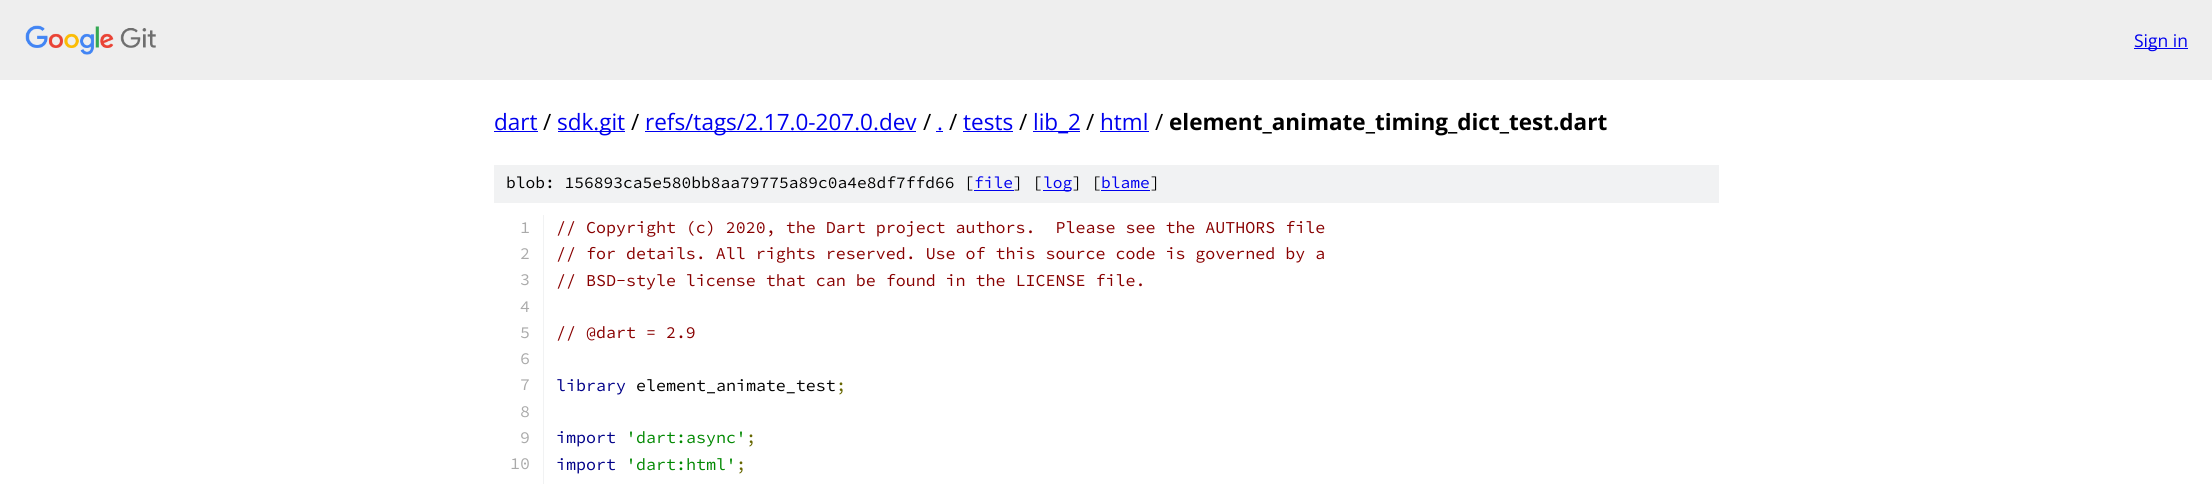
import math
import cairo

surface = cairo.ImageSurface(cairo.FORMAT_RGB24, 2212, 484)
c = cairo.Context(surface)
options = cairo.FontOptions()
options.set_hint_metrics(cairo.HINT_METRICS_OFF)
options.set_hint_style(cairo.HINT_STYLE_NONE)
c.set_font_options(options)
c.set_miter_limit(4)
def C(code):
 c.set_source_rgb(*(v / 255 for v in bytes.fromhex(code[-6:])))
def F(family, size, italic, bold):
 c.select_font_face(family, cairo.FONT_SLANT_ITALIC if italic else cairo.FONT_SLANT_NORMAL, cairo.FONT_WEIGHT_BOLD if bold else cairo.FONT_WEIGHT_NORMAL)
 c.set_font_size(size)
def T(x, y, s):
 c.move_to(x, y)
 c.show_text(s)
def R(x, y, w, h):
 c.rectangle(x, y, w, h)
 c.fill()
def I(path, x, y, w, h):
 c.save()
 c.set_source_surface(cairo.ImageSurface.create_from_png(path), x, y)
 c.rectangle(x, y, w, h)
 c.fill()
 c.restore()
C('ffffff')
c.paint()
C('eeeeee')
R(0,0,2212,80)
I('1.png',25,25,131,30)
C('0000ee')
R(2134,48,54,1)
F('Open Sans',17.5,0,0)
T(2134,47,'Sign in')
F('Open Sans',22.5,0,0)
T(494,130,'dart')
R(494,131,44,1)
C('000000')
T(543,130,'/')
C('0000ee')
R(558,131,67,1)
T(557,130,'sdk.git')
C('000000')
T(631,130,'/')
C('0000ee')
R(645,131,271,1)
T(645,130,'refs/tags/2.17.0-207.0.dev')
C('000000')
T(923,130,'/')
C('0000ee')
T(937,130,'.')
R(936,131,7,1)
C('000000')
T(949,130,'/')
C('0000ee')
T(963,130,'tests')
R(963,131,50,1)
C('000000')
T(1019,130,'/')
C('0000ee')
R(1033,131,47,1)
T(1033,130,'lib_2')
C('000000')
T(1086,130,'/')
C('0000ee')
T(1100,130,'html')
R(1100,131,49,1)
C('000000')
T(1155,130,'/')
F('Open Sans',22.5,0,1)
T(1169,130,'element_animate_timing_dict_test.dart')
C('f1f2f3')
R(494,165,1225,38)
F('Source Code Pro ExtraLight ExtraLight',16.25,0,0)
C('000000')
T(506,188,'blob: 156893ca5e580bb8aa79775a89c0a4e8df7ffd66 [')
C('0000ee')
T(974,188,'file')
R(974,190,40,1)
C('000000')
T(1013,188,'] [')
C('0000ee')
R(1043,190,28,1)
T(1043,188,'log')
C('000000')
T(1072,188,'] [')
C('0000ee')
T(1101,188,'blame')
R(1101,190,49,1)
C('000000')
T(1150,188,']')
C('f1f2f3')
R(543,215,1,269)
F('Source Code Pro ExtraLight ExtraLight',16.65,0,0)
C('aaaaaa')
T(520,233,'1')
C('880000')
T(556,233,'// Copyright (c) 2020, the Dart project authors.  Please see the AUTHORS file')
C('aaaaaa')
T(520,259,'2')
C('880000')
T(556,259,'// for details. All rights reserved. Use of this source code is governed by a')
C('aaaaaa')
T(520,285,'3')
C('880000')
T(556,286,'// BSD-style license that can be found in the LICENSE file.')
C('aaaaaa')
T(520,312,'4')
T(520,338,'5')
C('880000')
T(556,338,'// @dart = 2.9')
C('aaaaaa')
T(520,364,'6')
T(520,390,'7')
C('000088')
T(556,391,'library')
C('000000')
T(636,391,'element_animate_test')
C('666600')
T(836,391,';')
C('aaaaaa')
T(520,417,'8')
T(520,443,'9')
C('000088')
T(556,443,'import')
C('008800')
T(626,443,'\'dart:async\'')
C('666600')
T(746,443,';')
C('aaaaaa')
T(510,469,'10')
C('000088')
T(556,470,'import')
C('008800')
T(626,470,'\'dart:html\'')
C('666600')
T(736,470,';')
surface.write_to_png('o.png')
